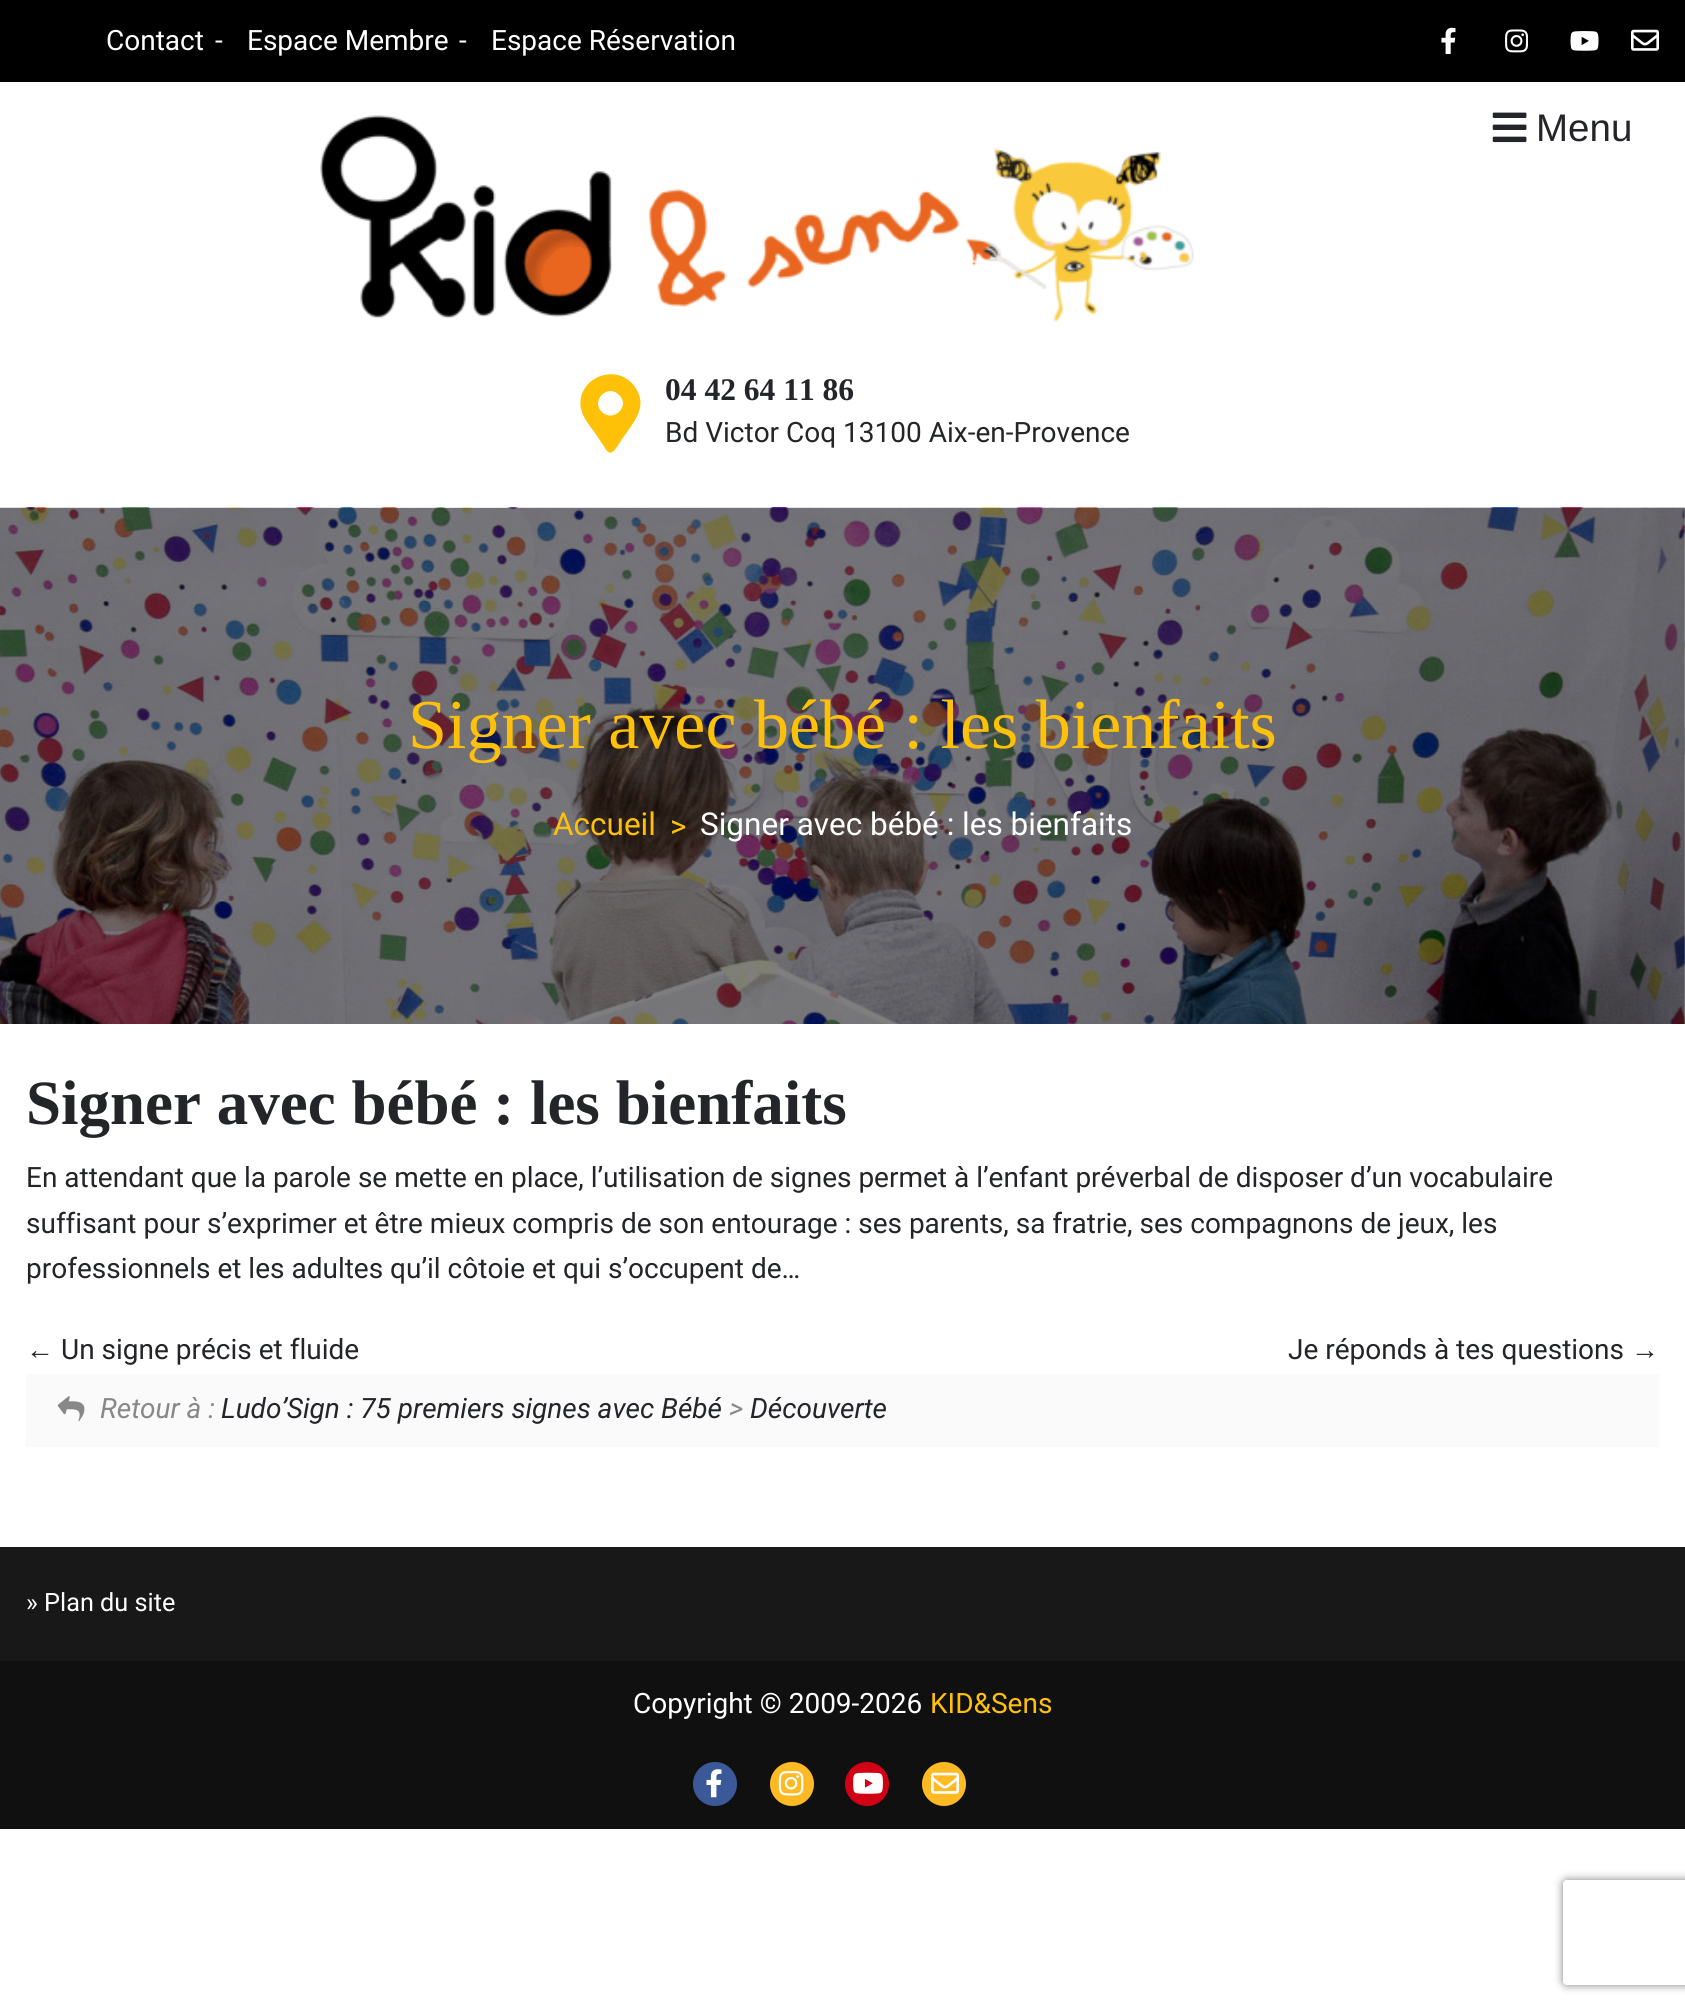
import math
import cairo

surface = cairo.ImageSurface(cairo.FORMAT_RGB24, 1685, 2009)
c = cairo.Context(surface)
options = cairo.FontOptions()
options.set_hint_metrics(cairo.HINT_METRICS_OFF)
options.set_hint_style(cairo.HINT_STYLE_NONE)
c.set_font_options(options)
c.set_miter_limit(4)
def C(code):
 c.set_source_rgb(*(v / 255 for v in bytes.fromhex(code[-6:])))
def F(family, size, italic, bold):
 c.select_font_face(family, cairo.FONT_SLANT_ITALIC if italic else cairo.FONT_SLANT_NORMAL, cairo.FONT_WEIGHT_BOLD if bold else cairo.FONT_WEIGHT_NORMAL)
 c.set_font_size(size)
def T(x, y, s):
 c.move_to(x, y)
 c.show_text(s)
def R(x, y, w, h):
 c.rectangle(x, y, w, h)
 c.fill()
def Q(x, y, w, h, r):
 c.new_sub_path()
 for i, (u, v) in enumerate([(x + w - r, y + h - r), (x + r, y + h - r), (x + r, y + r), (x + w - r, y + r)]):
  c.arc(u, v, r, i * math.pi / 2, (i + 1) * math.pi / 2)
 c.close_path()
def S(x, y, w, h, r, blur, alpha):
 c.push_group_with_content(cairo.CONTENT_ALPHA)
 c.set_operator(cairo.OPERATOR_SOURCE)
 for i in range(15, -16, -2):
  e = blur * i / 6
  if min(w, h) + 2 * e > 0:
   c.set_source_rgba(0, 0, 0, alpha * math.erfc((i - 1) / 8.5) / 2)
   Q(x - e, y - e, w + 2 * e, h + 2 * e, max(0, min(r + e + blur * .6, min(w, h) / 2 + e)))
   c.fill()
 c.mask(c.pop_group())
def I(path, x, y, w, h):
 c.save()
 c.set_source_surface(cairo.ImageSurface.create_from_png(path), x, y)
 c.rectangle(x, y, w, h)
 c.fill()
 c.restore()
C('ffffff')
c.paint()
C('000000')
R(0,0,1685,82)
F('Roboto',28,0,0)
C('ffffff')
T(106,50,'Contact')
T(215,50,'-')
T(247,50,'Espace Membre')
T(459,50,'-')
T(491,50,'Espace Réservation')
I('1.png',1441,27,15,27)
I('2.png',1505,29,23,24)
I('3.png',1570,31,29,20)
I('4.png',1631,29,28,22)
I('5.png',320,115,874,208)
I('6.png',1492,112,35,31)
F('Liberation Sans',38.5,0,0)
C('232529')
T(1536,141,'Menu')
C('ffc107')
c.new_path()
c.move_to(607,451)
c.line_to(595,433)
c.curve_to(590,426,583,418,581,409)
c.curve_to(575,378,617,361,635,387)
c.curve_to(649,407,633,423,622,439)
c.curve_to(620,442,615,451,612,452)
c.curve_to(611,453,609,453,607,451)
c.close_path()
c.move_to(602,412)
c.curve_to(613,423,631,406,619,395)
c.curve_to(608,383,590,401,602,412)
c.close_path()
c.fill()
F('Liberation Serif',31.5,0,1)
C('232529')
T(665,400,'04 42 64 11 86')
F('Roboto',28,0,0)
T(665,442,'Bd Victor Coq 13100 Aix-en-Provence')
I('7.png',0,507,1685,517)
F('Liberation Serif',70,0,0)
C('ffc107')
T(408,748,'Signer avec bébé : les bienfaits')
F('Roboto',31.5,0,0)
T(553,835,'Accueil')
T(670,837,'>')
C('ffffff')
T(700,835,'Signer avec bébé : les bienfaits')
F('Liberation Serif',63,0,1)
C('232529')
T(26,1124,'Signer avec bébé : les bienfaits')
F('Roboto',28,0,0)
T(26,1187,'En attendant que la parole se mette en place, l’utilisation de signes permet à l’enfant préverbal de disposer d’un vocabulaire')
T(26,1233,'suffisant pour s’exprimer et être mieux compris de son entourage : ses parents, sa fratrie, ses compagnons de jeux, les')
T(26,1278,'professionnels et les adultes qu’il côtoie et qui s’occupent de…')
F('Liberation Sans',28,0,0)
T(26,1359,'←')
F('Roboto',28,0,0)
T(61,1359,'Un signe précis et fluide')
T(1288,1359,'Je réponds à tes questions')
F('Liberation Sans',28,0,0)
T(1631,1359,'→')
C('fafafa')
R(26,1374,1633,73)
I('8.png',57,1396,28,26)
F('Roboto',28,1,0)
C('888888')
T(100,1418,'Retour à :')
C('232529')
T(221,1418,'Ludo’Sign : 75 premiers signes avec Bébé')
C('888888')
T(729,1418,'>')
C('232529')
T(750,1418,'Découverte')
C('191818')
R(0,1547,1685,114)
F('Roboto',25.25,0,0)
C('ffffff')
T(26,1611,'» Plan du site')
C('101010')
R(0,1661,1685,168)
F('Roboto',28,0,0)
C('ffffff')
T(633,1713,'Copyright © 2009-2026')
C('ffc107')
T(930,1713,'KID&Sens')
C('3b5998')
c.new_path()
c.arc(715,1784,22,0,2 * math.pi)
c.fill()
I('9.png',706,1769,16,29)
C('ffb923')
c.arc(792,1784,22,0,2 * math.pi)
c.fill()
I('10.png',778,1771,26,25)
C('d20014')
c.arc(867,1784,22,0,2 * math.pi)
c.fill()
I('11.png',853,1772,30,22)
C('ffb923')
c.arc(944,1784,22,0,2 * math.pi)
c.fill()
I('12.png',931,1772,28,22)
c.save()
c.set_fill_rule(cairo.FILL_RULE_EVEN_ODD)
c.new_path()
c.move_to(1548,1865)
c.line_to(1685,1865)
c.line_to(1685,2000)
c.line_to(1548,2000)
c.close_path()
c.move_to(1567,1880)
c.line_to(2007,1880)
c.curve_to(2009,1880,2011,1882,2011,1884)
c.line_to(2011,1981)
c.curve_to(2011,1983,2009,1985,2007,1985)
c.line_to(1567,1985)
c.curve_to(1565,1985,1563,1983,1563,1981)
c.line_to(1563,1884)
c.curve_to(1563,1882,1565,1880,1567,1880)
c.close_path()
c.clip()
C('808080')
S(1563,1880,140,105,4,4.5,1)
c.restore()
surface.write_to_png('o.png')
